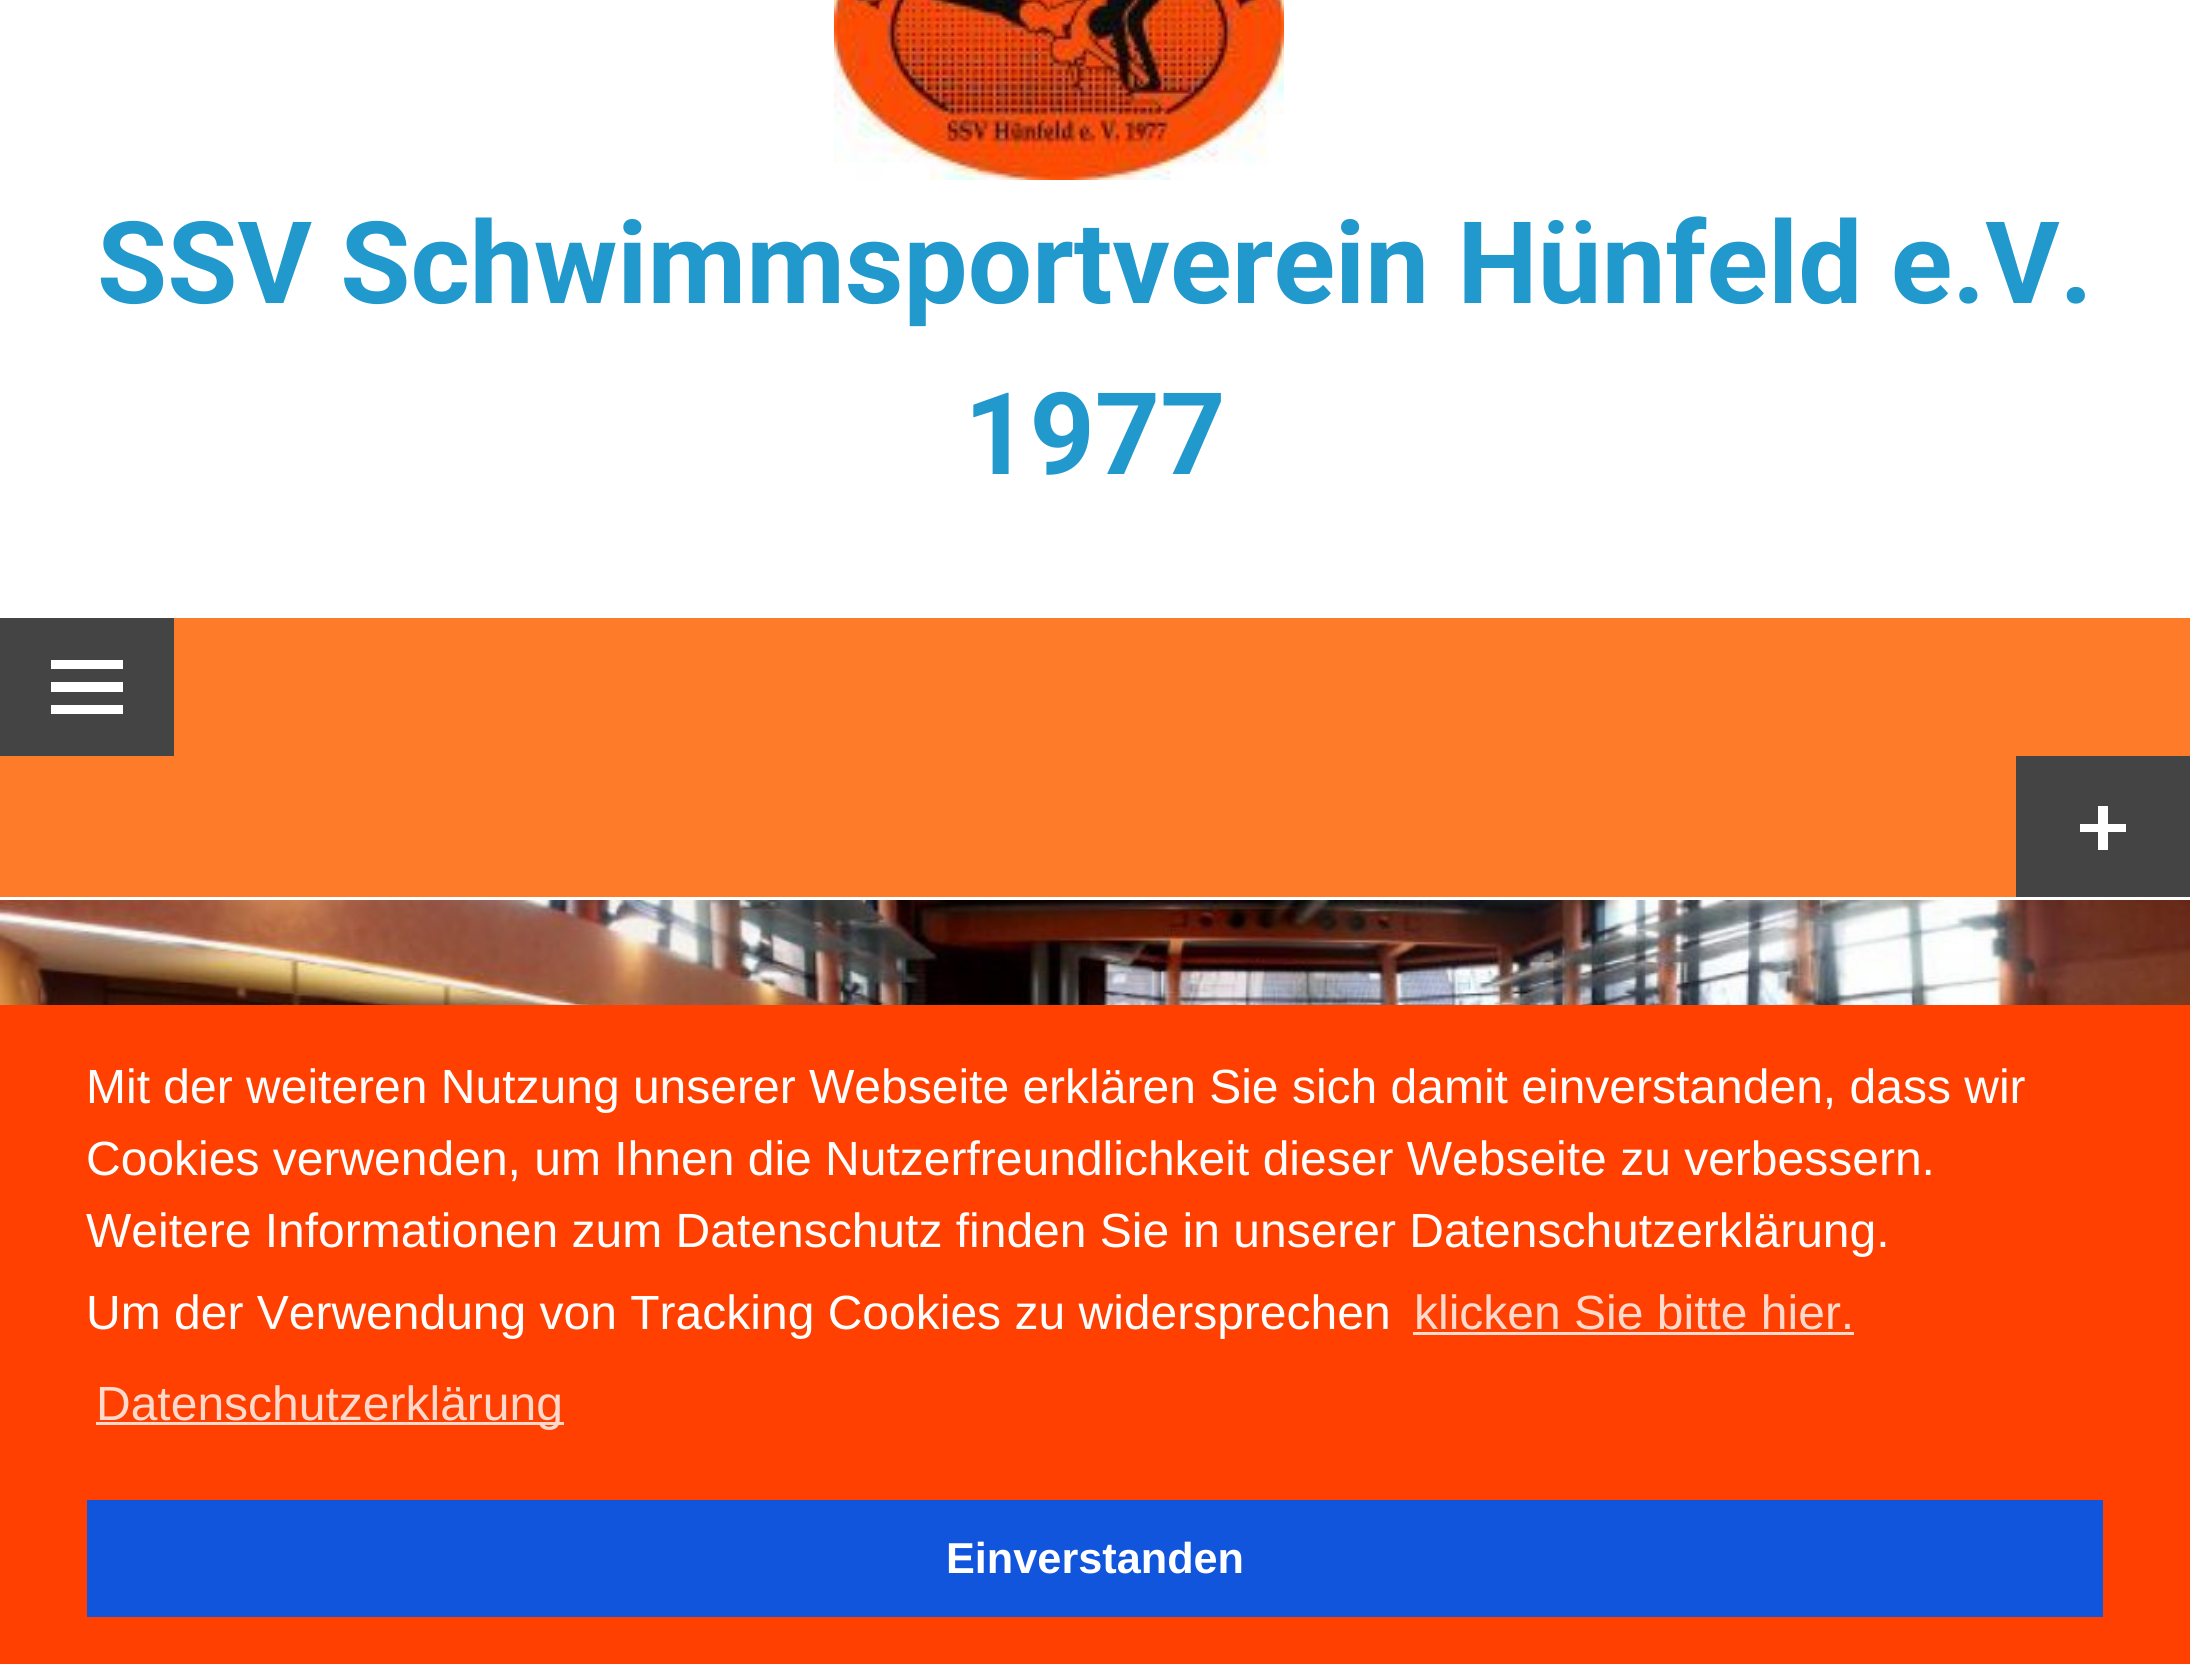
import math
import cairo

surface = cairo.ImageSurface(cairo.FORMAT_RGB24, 2190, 1664)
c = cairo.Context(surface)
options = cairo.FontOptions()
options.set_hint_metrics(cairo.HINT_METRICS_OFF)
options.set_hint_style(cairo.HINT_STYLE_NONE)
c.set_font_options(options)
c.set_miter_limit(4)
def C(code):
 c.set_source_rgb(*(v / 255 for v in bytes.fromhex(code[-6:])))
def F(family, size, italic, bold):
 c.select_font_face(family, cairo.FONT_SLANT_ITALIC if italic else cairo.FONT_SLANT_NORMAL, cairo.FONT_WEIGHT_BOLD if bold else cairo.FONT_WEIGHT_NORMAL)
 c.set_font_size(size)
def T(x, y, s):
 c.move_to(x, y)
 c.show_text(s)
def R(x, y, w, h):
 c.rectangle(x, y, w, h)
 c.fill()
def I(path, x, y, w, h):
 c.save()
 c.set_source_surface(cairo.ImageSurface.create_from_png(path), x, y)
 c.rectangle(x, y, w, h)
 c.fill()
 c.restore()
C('ffffff')
c.paint()
I('1.png',834,0,450,180)
F('Roboto',114,0,1)
C('2299cc')
T(97,303,'SSV Schwimmsportverein Hünfeld e.V.')
T(964,474,'1977')
C('fe7b29')
R(0,618,2190,279)
C('444444')
R(2016,756,174,141)
C('ffffff')
c.new_path()
c.move_to(2126,824)
c.line_to(2126,832)
c.line_to(2108,832)
c.line_to(2108,850)
c.line_to(2098,850)
c.line_to(2098,832)
c.line_to(2080,832)
c.line_to(2080,824)
c.line_to(2098,824)
c.line_to(2098,806)
c.line_to(2108,806)
c.line_to(2108,824)
c.close_path()
c.fill()
C('444444')
R(0,618,174,138)
C('ffffff')
c.new_path()
c.move_to(51,714)
c.line_to(51,705)
c.line_to(123,705)
c.line_to(123,714)
c.close_path()
c.move_to(51,660)
c.line_to(123,660)
c.line_to(123,669)
c.line_to(51,669)
c.close_path()
c.move_to(51,692)
c.line_to(51,682)
c.line_to(123,682)
c.line_to(123,692)
c.close_path()
c.fill()
I('2.png',0,900,2190,105)
C('ff4000')
R(0,1005,2190,659)
F('Liberation Sans',48,0,0)
C('ffffff')
T(86,1103,'Mit der weiteren Nutzung unserer Webseite erklären Sie sich damit einverstanden, dass wir')
T(86,1175,'Cookies verwenden, um Ihnen die Nutzerfreundlichkeit dieser Webseite zu verbessern.')
T(86,1247,'Weitere Informationen zum Datenschutz finden Sie in unserer Datenschutzerklärung.')
T(86,1329,'Um der Verwendung von Tracking Cookies zu widersprechen')
C('ffd9cc')
T(1414,1329,'klicken Sie bitte hier.')
R(1413,1332,441,3)
R(96,1422,468,3)
T(96,1420,'Datenschutzerklärung')
C('1155dd')
R(87,1500,2016,117)
F('Liberation Sans',43.25,0,1)
C('ffffff')
T(946,1573,'Einverstanden')
surface.write_to_png('o.png')
